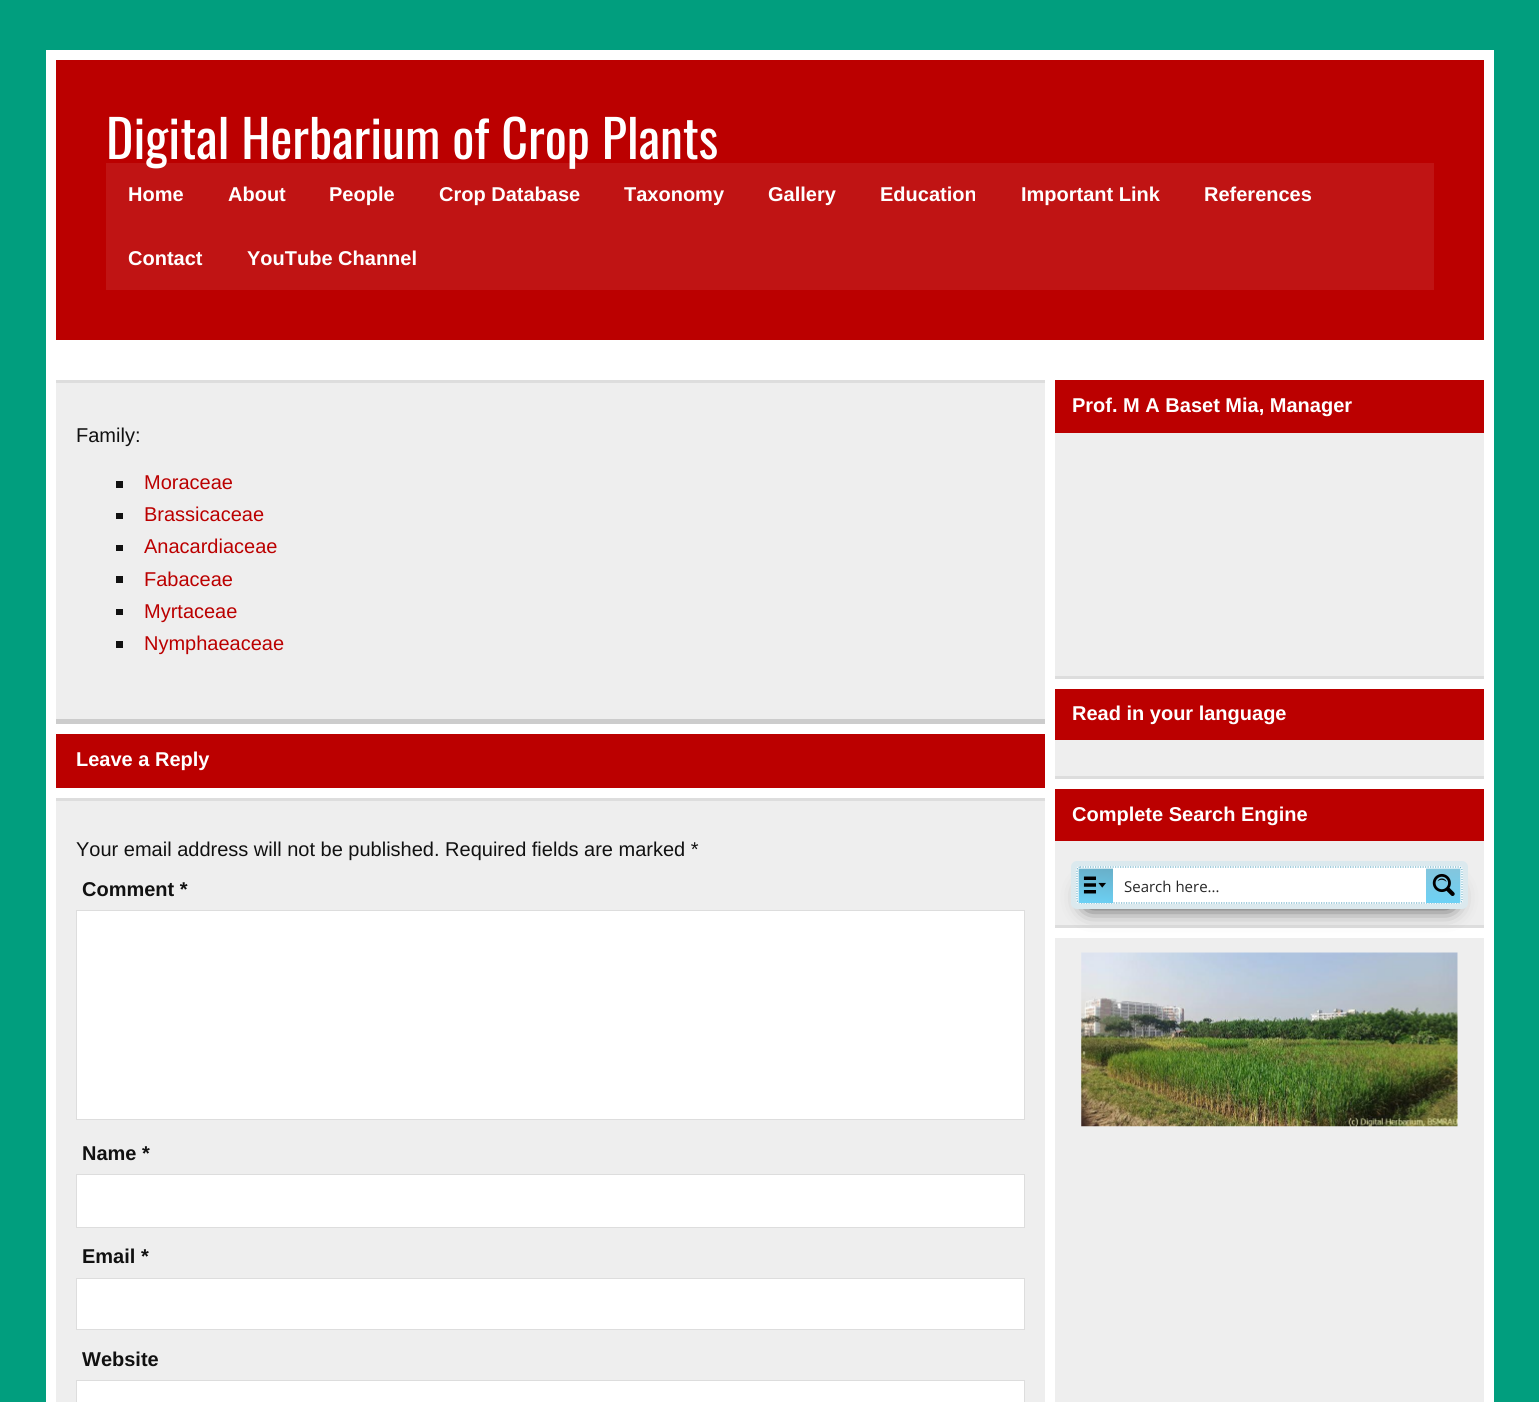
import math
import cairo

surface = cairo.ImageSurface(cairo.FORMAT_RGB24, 1539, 1402)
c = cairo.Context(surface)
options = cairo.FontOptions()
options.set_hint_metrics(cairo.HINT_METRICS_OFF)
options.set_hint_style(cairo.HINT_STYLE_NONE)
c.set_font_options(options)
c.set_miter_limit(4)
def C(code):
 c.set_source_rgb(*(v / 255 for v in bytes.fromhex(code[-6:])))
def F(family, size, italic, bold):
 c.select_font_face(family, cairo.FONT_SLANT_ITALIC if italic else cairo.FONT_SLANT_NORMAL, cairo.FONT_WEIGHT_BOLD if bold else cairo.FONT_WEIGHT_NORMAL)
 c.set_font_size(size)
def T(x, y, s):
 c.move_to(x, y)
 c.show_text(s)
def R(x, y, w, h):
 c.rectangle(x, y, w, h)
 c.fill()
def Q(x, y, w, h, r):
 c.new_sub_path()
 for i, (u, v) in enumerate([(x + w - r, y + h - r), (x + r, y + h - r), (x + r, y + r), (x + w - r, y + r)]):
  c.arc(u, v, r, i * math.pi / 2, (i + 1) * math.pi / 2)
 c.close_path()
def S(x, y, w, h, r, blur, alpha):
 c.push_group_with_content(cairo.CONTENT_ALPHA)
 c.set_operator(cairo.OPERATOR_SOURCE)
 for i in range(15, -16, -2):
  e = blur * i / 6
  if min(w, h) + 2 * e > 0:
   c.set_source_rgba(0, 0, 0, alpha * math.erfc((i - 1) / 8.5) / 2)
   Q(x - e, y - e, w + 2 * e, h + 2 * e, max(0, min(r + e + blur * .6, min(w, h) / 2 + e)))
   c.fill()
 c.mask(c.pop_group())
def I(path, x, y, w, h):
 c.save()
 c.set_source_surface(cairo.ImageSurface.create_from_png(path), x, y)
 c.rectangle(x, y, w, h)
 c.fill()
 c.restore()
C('019e7e')
c.paint()
C('ffffff')
R(46,50,1448,1352)
C('bb0000')
R(56,60,1428,280)
F('Oswald',52,0,0)
C('ffffff')
T(106,159,'Digital Herbarium of Crop Plants')
c.set_source_rgba(1,1,1,0.08)
R(106,163,1328,127)
F('Liberation Sans',20,0,1)
C('ffffff')
T(128,201,'Home')
T(228,201,'About')
T(329,201,'People')
T(439,201,'Crop Database')
T(624,201,'Taxonomy')
T(768,201,'Gallery')
T(880,201,'Education')
T(1021,201,'Important Link')
T(1204,201,'References')
T(128,265,'Contact')
T(247,265,'YouTube Channel')
C('eeeeee')
R(56,383,989,336)
C('dddddd')
R(56,380,989,3)
C('cccccc')
R(56,719,989,5)
F('Liberation Sans',20,0,0)
C('111111')
T(76,442,'Family:')
R(116,481,7,7)
C('bb0000')
T(144,489,'Moraceae')
C('111111')
R(116,513,7,6)
C('bb0000')
T(144,521,'Brassicaceae')
C('111111')
R(116,545,7,6)
C('bb0000')
T(144,553,'Anacardiaceae')
C('111111')
R(116,576,7,7)
C('bb0000')
T(144,586,'Fabaceae')
C('111111')
R(116,609,7,6)
C('bb0000')
T(144,618,'Myrtaceae')
C('111111')
R(116,641,7,7)
C('bb0000')
T(144,650,'Nymphaeaceae')
R(56,734,989,54)
F('Liberation Sans',20,0,1)
C('ffffff')
T(76,766,'Leave a Reply')
C('eeeeee')
R(56,801,989,601)
C('dddddd')
R(56,798,989,3)
F('Liberation Sans',20,0,0)
C('111111')
T(76,856,'Your email address will not be published. Required fields are marked *')
F('Liberation Sans',20,0,1)
T(82,896,'Comment *')
C('ffffff')
c.rectangle(76.5,910.5,948,209)
c.fill_preserve()
C('dddddd')
c.set_line_width(1)
c.stroke()
C('111111')
T(82,1160,'Name *')
C('ffffff')
c.rectangle(76.5,1174.5,948,53)
c.fill_preserve()
C('dddddd')
c.stroke()
C('111111')
T(82,1263,'Email *')
C('ffffff')
c.rectangle(76.5,1278.5,948,51)
c.fill_preserve()
C('dddddd')
c.stroke()
C('111111')
T(82,1366,'Website')
C('ffffff')
c.rectangle(76.5,1380.5,948,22)
c.fill_preserve()
C('dddddd')
c.stroke()
C('eeeeee')
R(1055,433,429,243)
C('dddddd')
R(1055,676,429,3)
C('bb0000')
R(1055,380,429,53)
C('ffffff')
T(1072,412,'Prof. M A Baset Mia, Manager')
C('eeeeee')
R(1055,740,429,36)
C('dddddd')
R(1055,776,429,3)
C('bb0000')
R(1055,689,429,51)
C('ffffff')
T(1072,720,'Read in your language')
C('eeeeee')
R(1055,841,429,84)
C('dddddd')
R(1055,925,429,3)
C('bb0000')
R(1055,789,429,52)
C('ffffff')
T(1072,821,'Complete Search Engine')
C('eeeeee')
R(1055,938,429,464)
C('000000')
S(1088,890,363,15,0,11,1)
C('dbe9ee')
Q(1071,861,397,48,6)
c.fill()
C('ffffff')
Q(1076,866,387,38,4)
c.fill()
c.new_path()
c.move_to(1080,867)
c.line_to(1459,867)
c.curve_to(1460.5,867,1462,868.5,1462,870)
c.line_to(1462,900)
c.curve_to(1462,901.5,1460.5,903,1459,903)
c.line_to(1080,903)
c.curve_to(1078.5,903,1077,901.5,1077,900)
c.line_to(1077,870)
c.curve_to(1077,868.5,1078.5,867,1080,867)
c.close_path()
C('68aec7')
c.set_line_width(1.2)
c.set_dash([1.25,1.25])
c.stroke()
gradient = cairo.LinearGradient(1097,866,1093,904)
gradient.add_color_stop_rgba(0,0.408,0.682,0.78,1)
gradient.add_color_stop_rgba(1,0.424,0.82,0.961,1)
c.set_source(gradient)
c.new_path()
c.move_to(1080.5,868)
c.line_to(1113,868)
c.line_to(1113,903)
c.line_to(1080.5,903)
c.curve_to(1079,903,1078,902,1078,900.5)
c.line_to(1078,870.5)
c.curve_to(1078,869,1079,868,1080.5,868)
c.close_path()
c.fill()
c.save()
c.rectangle(1078,868,35,35)
c.clip()
c.set_source_rgba(1,1,1,0.63)
c.new_path()
c.move_to(1079,869)
c.line_to(1079,903)
c.curve_to(1078,902,1078,901,1078,900)
c.line_to(1078,870)
c.curve_to(1078,869,1079,868,1080,868)
c.line_to(1236,868)
c.line_to(1236,903)
c.line_to(1114,903)
c.line_to(1114,869)
c.close_path()
c.fill()
c.restore()
I('1.png',1083,876,23,18)
F('Open Sans',15,0,0)
C('262626')
T(1124,892,'Search here...')
gradient = cairo.LinearGradient(1444,868,1444,903)
gradient.add_color_stop_rgba(0,0.518,0.773,0.863,1)
gradient.add_color_stop_rgba(1,0.424,0.82,0.961,1)
c.set_source(gradient)
c.new_path()
c.move_to(1426,868)
c.line_to(1458.5,868)
c.curve_to(1460,868,1461,869,1461,870.5)
c.line_to(1461,900.5)
c.curve_to(1461,902,1460,903,1458.5,903)
c.line_to(1426,903)
c.close_path()
c.fill()
c.save()
c.rectangle(1426,868,35,35)
c.clip()
c.set_source_rgba(1,1,1,0.61)
c.new_path()
c.move_to(1425,869)
c.line_to(1425,903)
c.line_to(1302,903)
c.line_to(1302,868)
c.line_to(1458,868)
c.curve_to(1460,868,1461,869,1461,870)
c.line_to(1461,900)
c.curve_to(1461,901,1461,902,1460,903)
c.line_to(1460,869)
c.close_path()
c.fill()
c.restore()
I('2.png',1432,873,23,23)
I('3.png',1081,952,377,175)
surface.write_to_png('o.png')
